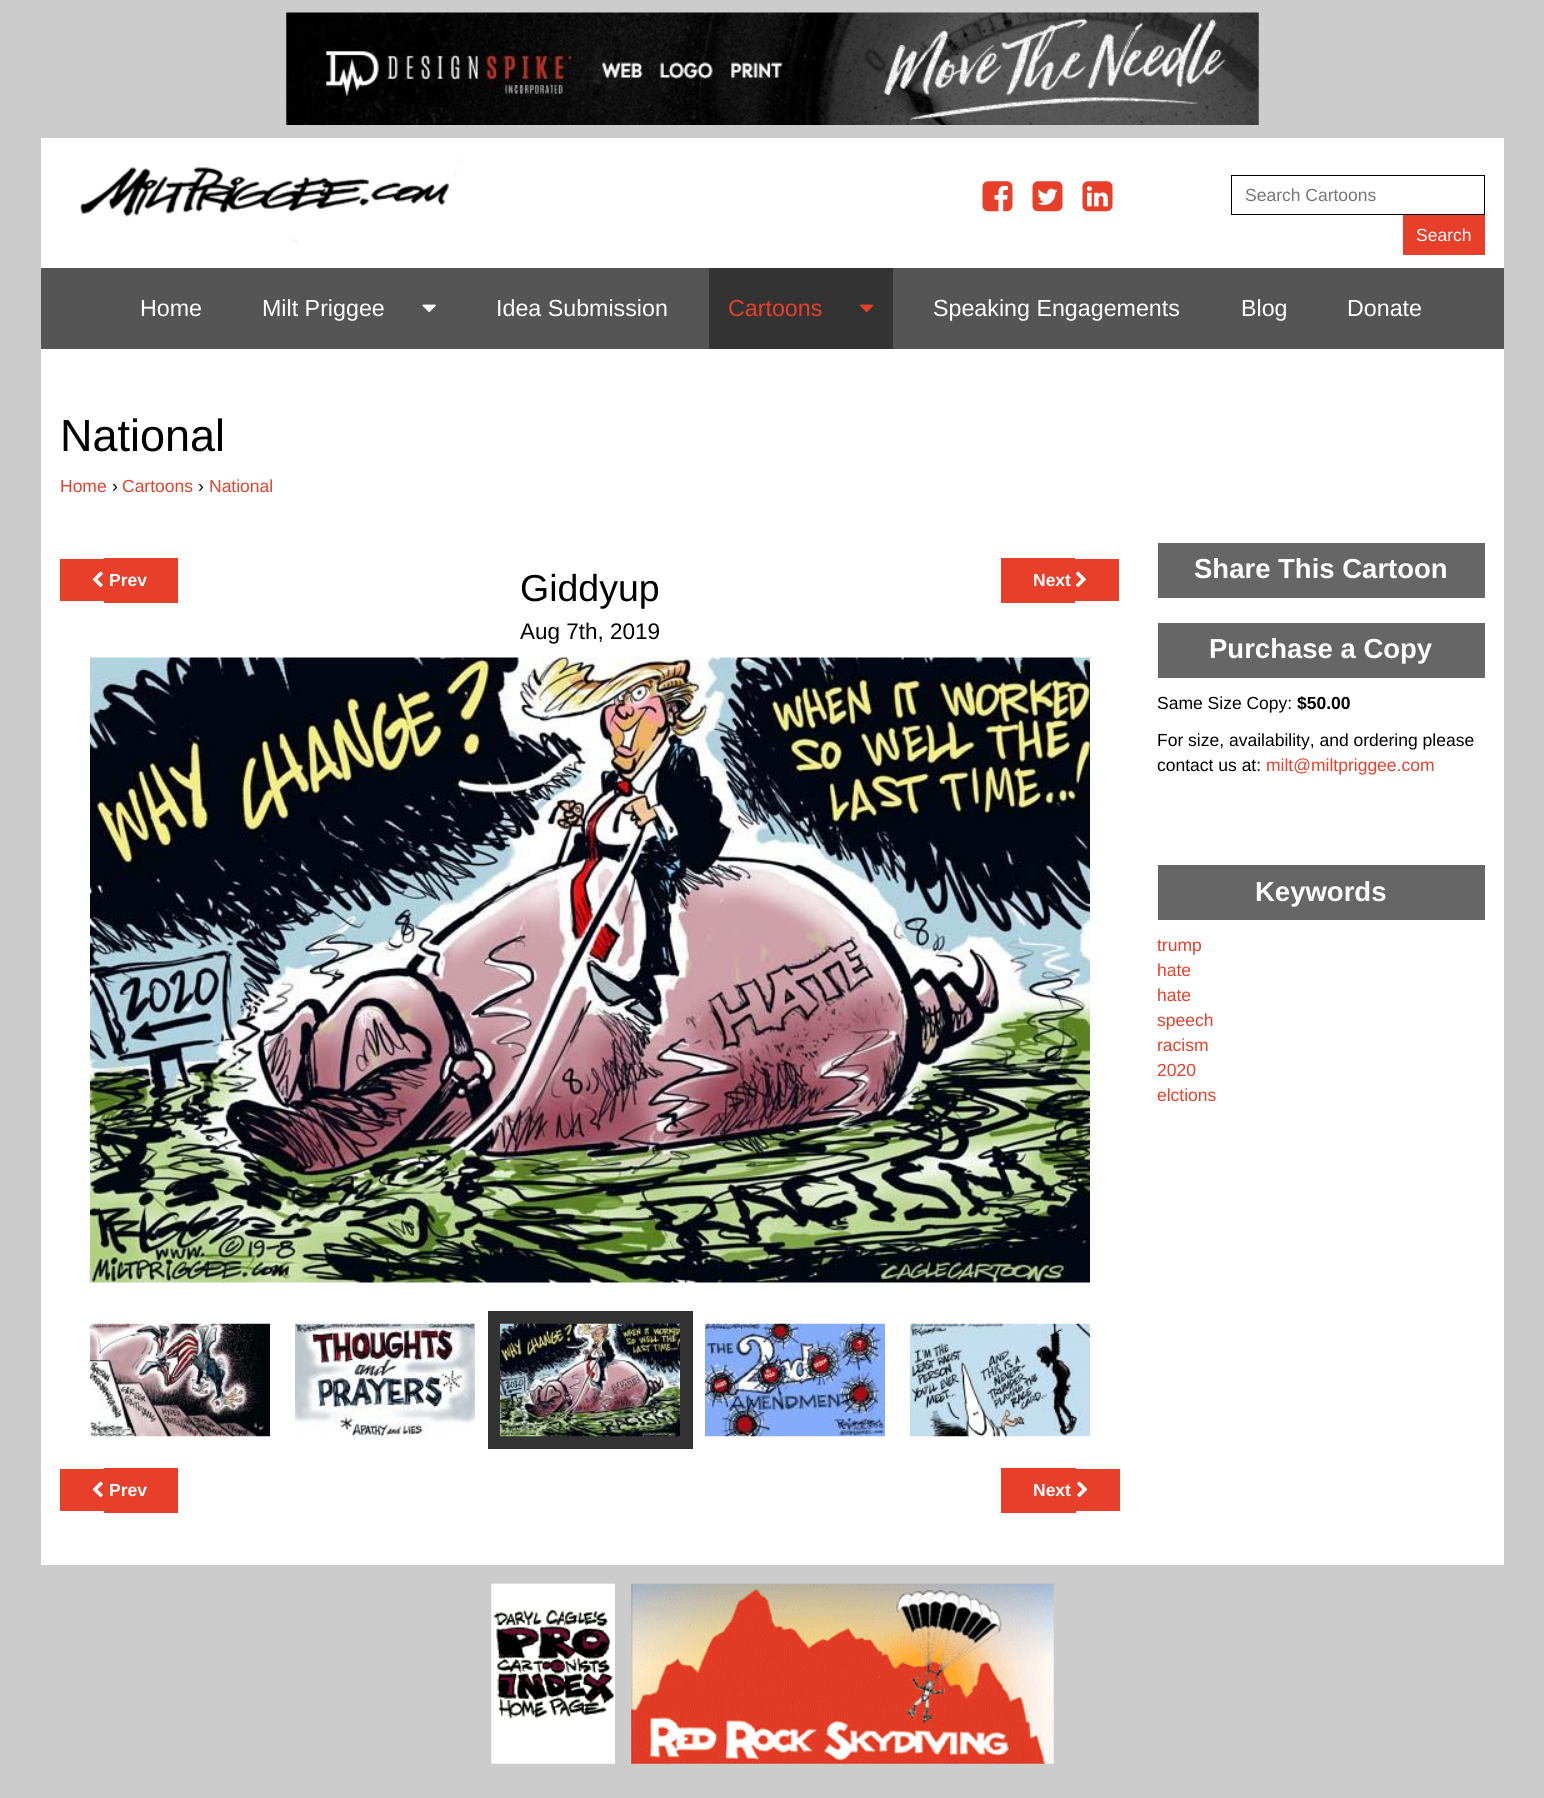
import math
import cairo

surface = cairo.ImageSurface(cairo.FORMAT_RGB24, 1544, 1798)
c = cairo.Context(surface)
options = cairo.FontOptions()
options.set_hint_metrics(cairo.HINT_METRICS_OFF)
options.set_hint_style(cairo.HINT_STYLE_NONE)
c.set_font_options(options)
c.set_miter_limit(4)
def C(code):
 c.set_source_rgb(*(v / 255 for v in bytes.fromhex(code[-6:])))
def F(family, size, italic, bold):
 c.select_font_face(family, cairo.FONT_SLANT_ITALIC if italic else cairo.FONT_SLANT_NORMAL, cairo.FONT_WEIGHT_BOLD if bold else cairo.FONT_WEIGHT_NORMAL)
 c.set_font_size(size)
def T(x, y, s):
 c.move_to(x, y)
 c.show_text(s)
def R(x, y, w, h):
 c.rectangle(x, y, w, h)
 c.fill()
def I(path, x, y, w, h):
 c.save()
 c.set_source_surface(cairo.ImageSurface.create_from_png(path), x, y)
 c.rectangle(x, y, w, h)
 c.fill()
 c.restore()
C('cccccc')
c.paint()
I('1.png',286,12,973,113)
C('ffffff')
R(41,138,1463,1427)
I('2.png',80,159,380,83)
I('3.png',982,181,31,31)
I('4.png',1032,181,31,31)
I('5.png',1082,181,31,31)
c.rectangle(1231.5,175.5,253,39)
C('000000')
c.set_line_width(1)
c.stroke()
F('Liberation Sans',17.5,0,0)
C('757575')
T(1245,201,'Search Cartoons')
C('e73f2a')
R(1403,215,82,40)
C('ffffff')
T(1416,241,'Search')
C('555555')
R(41,268,1463,81)
F('Liberation Sans',23.25,0,0)
C('ffffff')
T(140,316,'Home')
T(262,316,'Milt Priggee')
I('6.png',422,304,14,8)
T(496,316,'Idea Submission')
C('333333')
R(709,268,184,81)
I('7.png',860,304,14,8)
C('e73f2a')
T(728,316,'Cartoons')
C('ffffff')
T(933,316,'Speaking Engagements')
T(1241,316,'Blog')
T(1347,316,'Donate')
F('Liberation Sans',45,0,0)
C('000000')
T(60,451,'National')
F('Liberation Sans',17.5,0,0)
C('e73f2a')
T(60,492,'Home')
C('000000')
T(112,492,'›')
C('e73f2a')
T(122,492,'Cartoons')
C('000000')
T(198,492,'›')
C('e73f2a')
T(209,492,'National')
R(60,559,44,42)
R(104,558,74,45)
I('8.png',92,571,11,17)
F('Liberation Sans',17.5,0,1)
C('ffffff')
T(109,586,'Prev')
F('Liberation Sans',37.5,0,0)
C('000000')
T(520,601,'Giddyup')
F('Liberation Sans',22.5,0,0)
T(520,639,'Aug 7th, 2019')
C('e73f2a')
R(1001,558,74,45)
R(1075,559,44,42)
F('Liberation Sans',17.5,0,1)
C('ffffff')
T(1033,586,'Next')
I('9.png',1075,571,11,17)
I('10.png',90,657,1000,626)
I('11.png',90,1323,180,114)
I('12.png',295,1323,180,114)
C('333333')
R(488,1311,205,138)
I('13.png',500,1323,180,114)
I('14.png',705,1323,180,114)
I('15.png',910,1323,180,114)
C('e73f2a')
R(60,1469,44,42)
R(104,1468,74,45)
I('8.png',92,1481,11,17)
C('ffffff')
T(109,1496,'Prev')
C('e73f2a')
R(1001,1468,75,45)
R(1076,1469,44,42)
C('ffffff')
T(1033,1496,'Next')
I('16.png',1077,1481,11,17)
C('666666')
R(1158,543,327,55)
F('Liberation Sans',27.5,0,1)
C('ffffff')
T(1194,578,'Share This Cartoon')
C('666666')
R(1158,623,327,55)
C('ffffff')
T(1209,658,'Purchase a Copy')
F('Liberation Sans',17.5,0,0)
C('000000')
T(1157,709,'Same Size Copy:')
F('Liberation Sans',17.5,0,1)
T(1297,709,'$50.00')
F('Liberation Sans',17.5,0,0)
T(1157,746,'For size, availability, and ordering please')
T(1157,771,'contact us at:')
C('e73f2a')
T(1266,771,'milt@miltpriggee.com')
C('666666')
R(1158,865,327,55)
F('Liberation Sans',27.5,0,1)
C('ffffff')
T(1255,901,'Keywords')
F('Liberation Sans',17.5,0,0)
C('e73f2a')
T(1157,951,'trump')
T(1157,976,'hate')
T(1157,1001,'hate')
T(1157,1026,'speech')
T(1157,1051,'racism')
T(1157,1076,'2020')
T(1157,1101,'elctions')
I('17.png',491,1583,124,181)
I('18.png',631,1583,423,181)
surface.write_to_png('o.png')
